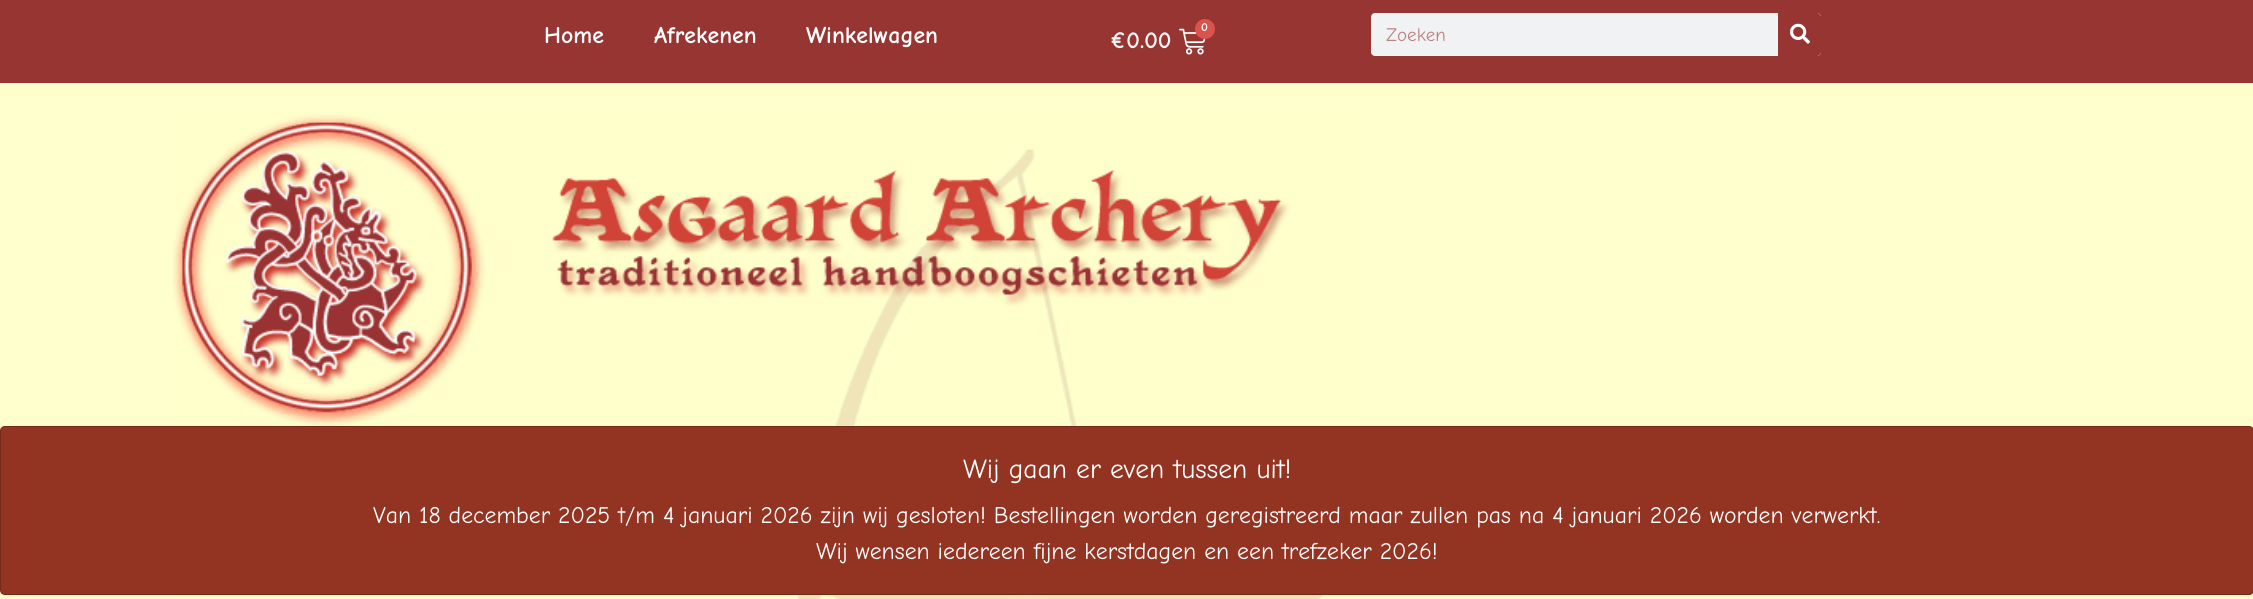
import math
import cairo

surface = cairo.ImageSurface(cairo.FORMAT_RGB24, 2253, 599)
c = cairo.Context(surface)
options = cairo.FontOptions()
options.set_hint_metrics(cairo.HINT_METRICS_OFF)
options.set_hint_style(cairo.HINT_STYLE_NONE)
c.set_font_options(options)
c.set_miter_limit(4)
def C(code):
 c.set_source_rgb(*(v / 255 for v in bytes.fromhex(code[-6:])))
def F(family, size, italic, bold):
 c.select_font_face(family, cairo.FONT_SLANT_ITALIC if italic else cairo.FONT_SLANT_NORMAL, cairo.FONT_WEIGHT_BOLD if bold else cairo.FONT_WEIGHT_NORMAL)
 c.set_font_size(size)
def T(x, y, s):
 c.move_to(x, y)
 c.show_text(s)
def R(x, y, w, h):
 c.rectangle(x, y, w, h)
 c.fill()
def Q(x, y, w, h, r):
 c.new_sub_path()
 for i, (u, v) in enumerate([(x + w - r, y + h - r), (x + r, y + h - r), (x + r, y + r), (x + w - r, y + r)]):
  c.arc(u, v, r, i * math.pi / 2, (i + 1) * math.pi / 2)
 c.close_path()
def I(path, x, y, w, h):
 c.save()
 c.set_source_surface(cairo.ImageSurface.create_from_png(path), x, y)
 c.rectangle(x, y, w, h)
 c.fill()
 c.restore()
C('ffffcd')
c.paint()
I('1.png',172,114,1197,485)
C('973533')
R(0,0,2253,83)
F('Comic Neue',23.75,0,1)
C('ffffff')
T(544,43,'Home')
T(654,43,'Afrekenen')
T(806,43,'Winkelwagen')
I('2.png',1179,28,27,27)
C('d9534f')
c.arc(1205,29,10,0,2 * math.pi)
c.fill()
F('Comic Neue',12,0,1)
C('ffffff')
T(1201,31,'0')
F('Comic Neue',23.75,0,1)
C('f6f6f6')
T(1110,48,'€0.00')
C('f1f2f3')
Q(1371,13,450,43,4)
c.fill()
F('Comic Neue',19,0,0)
C('bb8180')
T(1386,41,'Zoeken')
C('973533')
c.new_path()
c.move_to(1778,13)
c.line_to(1817,13)
c.curve_to(1819,13,1821,15,1821,17)
c.line_to(1821,52)
c.curve_to(1821,54,1819,56,1817,56)
c.line_to(1778,56)
c.close_path()
c.fill()
I('3.png',1790,23,20,21)
C('933322')
Q(0,426,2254,169,5)
c.fill()
Q(.5,426.5,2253,168,4.5)
c.set_source_rgba(0,0,0,0.2)
c.set_line_width(1)
c.stroke()
F('Comic Neue',27.5,0,0)
C('ffffff')
T(963,478,'Wij gaan er even tussen uit!')
F('Comic Neue',23.75,0,0)
T(373,523,'Van 18 december 2025 t/m 4 januari 2026 zijn wij gesloten! Bestellingen worden geregistreerd maar zullen pas na 4 januari 2026 worden verwerkt.')
T(816,559,'Wij wensen iedereen fijne kerstdagen en een trefzeker 2026!')
surface.write_to_png('o.png')
